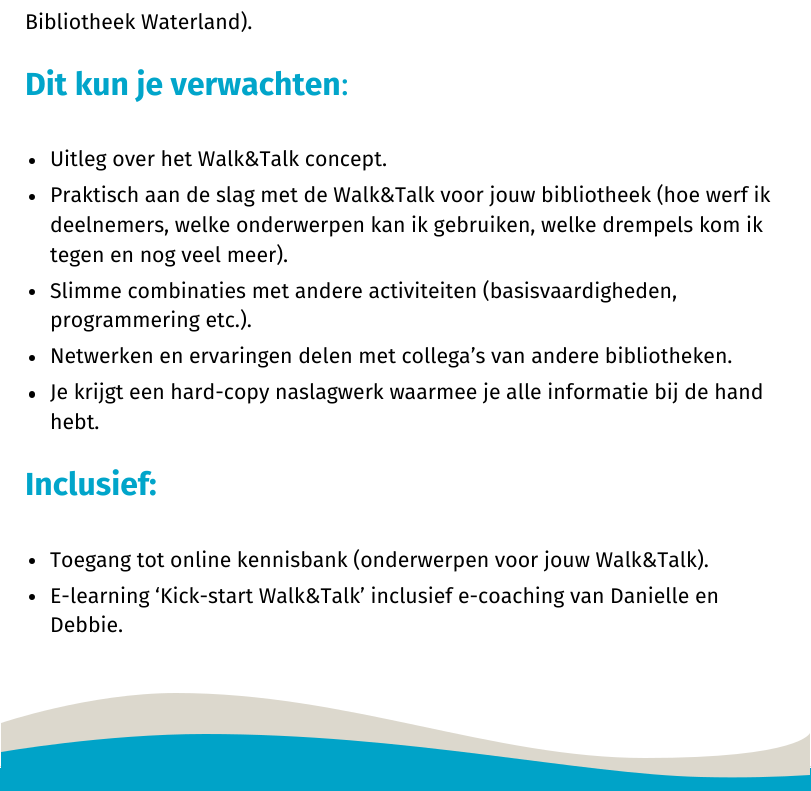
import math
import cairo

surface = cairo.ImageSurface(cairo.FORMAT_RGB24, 811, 791)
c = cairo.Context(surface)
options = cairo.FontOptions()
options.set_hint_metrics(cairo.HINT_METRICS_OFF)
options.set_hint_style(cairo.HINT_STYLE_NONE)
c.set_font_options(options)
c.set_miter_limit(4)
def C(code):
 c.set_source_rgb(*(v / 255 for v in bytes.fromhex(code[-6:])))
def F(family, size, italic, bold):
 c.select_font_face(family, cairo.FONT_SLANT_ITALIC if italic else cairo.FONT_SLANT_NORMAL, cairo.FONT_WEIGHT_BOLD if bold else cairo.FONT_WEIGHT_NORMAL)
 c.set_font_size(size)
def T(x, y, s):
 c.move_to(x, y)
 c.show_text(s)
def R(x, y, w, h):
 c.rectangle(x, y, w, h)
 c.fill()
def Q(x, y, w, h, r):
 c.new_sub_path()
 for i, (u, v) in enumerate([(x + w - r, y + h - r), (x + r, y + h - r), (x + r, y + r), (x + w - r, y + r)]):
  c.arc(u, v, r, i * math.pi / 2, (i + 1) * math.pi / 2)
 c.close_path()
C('ffffff')
c.paint()
F('Fira Sans',21.25,0,0)
C('000000')
T(25,29,'Bibliotheek Waterland).')
F('Fira Sans',31.9,0,1)
C('01a5ca')
T(25,95,'Dit kun je verwachten')
F('Fira Sans',31.9,0,0)
T(341,95,':')
C('000000')
c.new_path()
c.arc(32,161,3,0,2 * math.pi)
c.fill()
F('Fira Sans',21.25,0,0)
T(50,166,'Uitleg over het Walk&Talk concept.')
c.new_path()
c.arc(32,197,3,0,2 * math.pi)
c.fill()
T(50,202,'Praktisch aan de slag met de Walk&Talk voor jouw bibliotheek (hoe werf ik')
T(50,232,'deelnemers, welke onderwerpen kan ik gebruiken, welke drempels kom ik')
T(50,262,'tegen en nog veel meer).')
c.new_path()
c.arc(32,292,3,0,2 * math.pi)
c.fill()
T(50,298,'Slimme combinaties met andere activiteiten (basisvaardigheden,')
T(50,327,'programmering etc.).')
c.new_path()
c.arc(32,358,3,0,2 * math.pi)
c.fill()
T(50,363,'Netwerken en ervaringen delen met collega’s van andere bibliotheken.')
Q(29,391,6,7,3)
c.fill()
T(50,399,'Je krijgt een hard-copy naslagwerk waarmee je alle informatie bij de hand')
T(50,429,'hebt.')
F('Fira Sans',31.9,0,1)
C('01a5ca')
T(25,495,'Inclusief:')
C('000000')
c.new_path()
c.arc(32,561,3,0,2 * math.pi)
c.fill()
F('Fira Sans',21.25,0,0)
T(50,567,'Toegang tot online kennisbank (onderwerpen voor jouw Walk&Talk).')
c.new_path()
c.arc(32,597,3,0,2 * math.pi)
c.fill()
T(50,603,'E-learning ‘Kick-start Walk&Talk’ inclusief e-coaching van Danielle en')
T(50,632,'Debbie.')
C('00a3c8')
R(0,768,811,23)
C('dbdbdb')
R(0,766,811,1)
C('dcd8cd')
c.new_path()
c.move_to(645,758)
c.curve_to(492,758,348,693,176,693)
c.curve_to(89,693,1,723,1,723)
c.line_to(1,776)
c.curve_to(1,776,104,744,205,744)
c.curve_to(406,744,579,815,701,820)
c.curve_to(741,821,778,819,810,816)
c.line_to(810,733)
c.curve_to(810,733,801,758,645,758)
c.close_path()
c.fill()
C('00a3c8')
c.new_path()
c.move_to(701,777)
c.curve_to(579,774,406,734,205,734)
c.curve_to(104,734,1,752,1,752)
c.line_to(1,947)
c.line_to(810,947)
c.line_to(810,775)
c.curve_to(778,777,742,778,701,777)
c.close_path()
c.fill()
surface.write_to_png('o.png')
